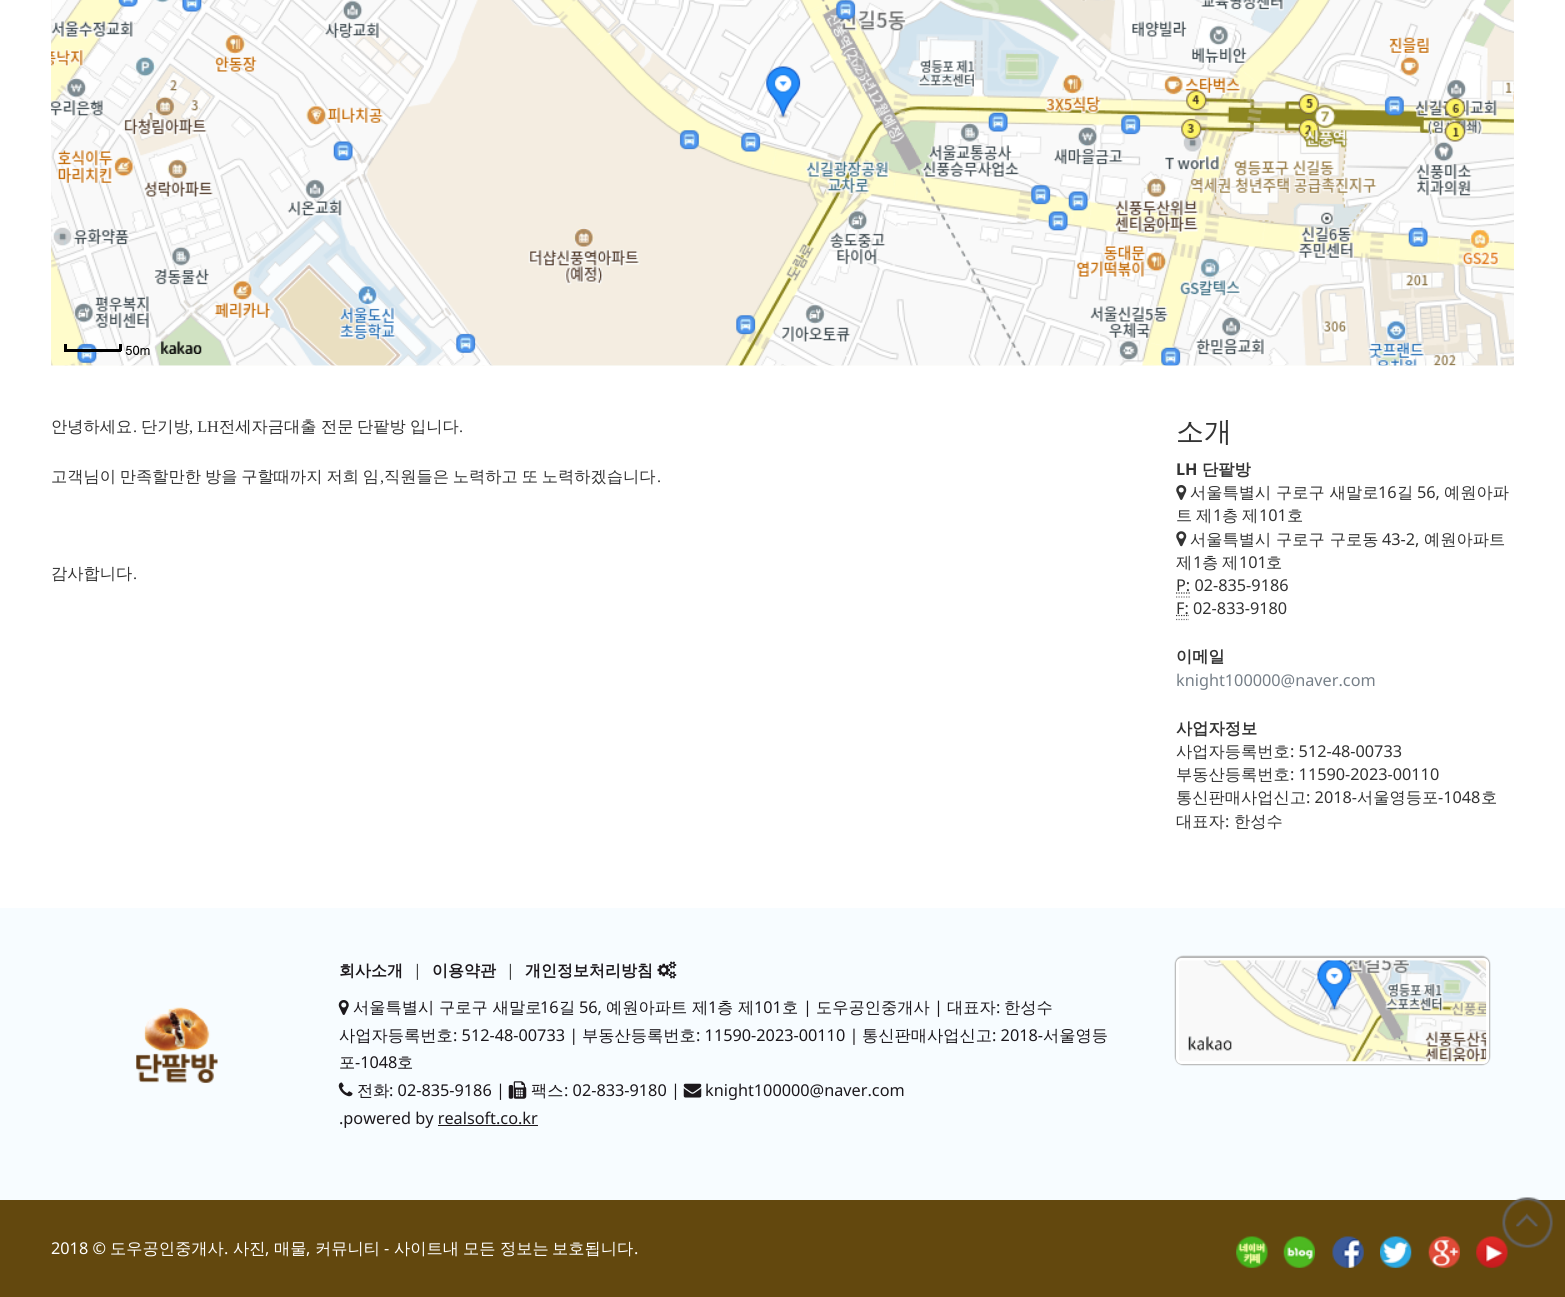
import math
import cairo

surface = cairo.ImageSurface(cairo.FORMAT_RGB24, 1565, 1297)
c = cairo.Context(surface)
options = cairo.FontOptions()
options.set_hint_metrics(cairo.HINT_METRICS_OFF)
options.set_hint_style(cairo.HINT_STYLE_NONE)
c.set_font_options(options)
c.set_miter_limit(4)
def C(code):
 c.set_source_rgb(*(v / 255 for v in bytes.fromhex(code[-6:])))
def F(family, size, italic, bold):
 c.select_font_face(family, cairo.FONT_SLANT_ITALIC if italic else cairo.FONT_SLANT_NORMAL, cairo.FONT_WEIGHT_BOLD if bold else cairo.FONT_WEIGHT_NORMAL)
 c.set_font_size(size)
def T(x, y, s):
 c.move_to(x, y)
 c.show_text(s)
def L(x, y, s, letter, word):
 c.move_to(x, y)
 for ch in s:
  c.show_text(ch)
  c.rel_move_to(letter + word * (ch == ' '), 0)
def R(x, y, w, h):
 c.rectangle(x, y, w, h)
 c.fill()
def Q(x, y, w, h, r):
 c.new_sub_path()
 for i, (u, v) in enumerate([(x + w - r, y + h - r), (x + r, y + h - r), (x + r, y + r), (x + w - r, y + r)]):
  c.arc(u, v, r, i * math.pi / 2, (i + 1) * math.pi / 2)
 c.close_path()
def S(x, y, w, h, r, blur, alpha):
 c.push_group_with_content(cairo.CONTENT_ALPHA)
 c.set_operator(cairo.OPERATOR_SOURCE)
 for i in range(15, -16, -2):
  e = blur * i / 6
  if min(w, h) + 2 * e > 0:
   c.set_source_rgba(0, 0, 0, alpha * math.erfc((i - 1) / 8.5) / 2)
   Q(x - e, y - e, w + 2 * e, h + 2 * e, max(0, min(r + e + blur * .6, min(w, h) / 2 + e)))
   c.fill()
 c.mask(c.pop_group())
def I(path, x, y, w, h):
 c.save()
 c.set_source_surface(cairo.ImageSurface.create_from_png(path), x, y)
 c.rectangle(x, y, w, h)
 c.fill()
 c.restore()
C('ffffff')
c.paint()
I('1.png',51,0,1463,366)
I('2.png',51,0,229,49)
I('3.png',280,0,320,49)
I('4.png',600,0,320,49)
I('5.png',920,0,320,49)
I('6.png',1240,0,274,49)
I('7.png',51,49,229,317)
I('8.png',280,49,320,317)
I('9.png',600,49,320,317)
I('10.png',920,49,320,317)
I('11.png',1240,49,274,317)
I('12.png',1513,20,1,13)
I('13.png',51,40,1,9)
I('14.png',51,49,180,317)
I('15.png',285,365,315,1)
I('16.png',600,365,312,1)
I('17.png',974,365,257,1)
I('18.png',1307,92,207,274)
I('19.png',766,66,35,53)
C('000000')
R(119,344,3,7)
R(64,349,57,3)
R(64,344,3,7)
F('Dotum',12.5,0,1)
T(125,355,'50m')
I('20.png',161,341,41,13)
F('WenQuanYi Zen Hei Medium',16.25,0,0)
C('333333')
T(51,432,'안녕하세요')
F('Liberation Serif',16.25,0,0)
T(133,432,'.')
F('WenQuanYi Zen Hei Medium',16.25,0,0)
T(141,432,'단기방')
F('Liberation Serif',16.25,0,0)
T(189,432,', LH')
F('WenQuanYi Zen Hei Medium',16.25,0,0)
T(219,432,'전세자금대출')
T(321,432,'전문')
T(357,432,'단팥방')
T(410,432,'입니다')
F('Liberation Serif',16.25,0,0)
T(459,432,'.')
F('WenQuanYi Zen Hei Medium',16.25,0,0)
L(51,482,'고객님이 만족할만한 방을 구할때까지 저희 임',0,-1)
F('Liberation Serif',16.25,0,0)
T(380,482,',')
F('WenQuanYi Zen Hei Medium',16.25,0,0)
L(384,482,'직원들은 노력하고 또 노력하겠습니다',0,-1)
F('Liberation Serif',16.25,0,0)
T(657,482,'.')
F('WenQuanYi Zen Hei Medium',16.25,0,0)
T(51,579,'감사합니다')
F('Liberation Serif',16.25,0,0)
T(133,579,'.')
F('WenQuanYi Zen Hei Medium',28,0,0)
T(1176,441,'소개')
F('Noto Sans',16.25,0,1)
T(1176,475,'LH')
F('WenQuanYi Zen Hei',16.25,0,1)
T(1202,475,'단팥방')
I('21.png',1176,485,11,15)
F('WenQuanYi Zen Hei Medium',16.25,0,0)
T(1190,498,'서울특별시 구로구 새말로')
F('Noto Sans',16.25,0,0)
T(1378,498,'16')
F('WenQuanYi Zen Hei Medium',16.25,0,0)
T(1397,498,'길')
F('Noto Sans',16.25,0,0)
T(1417,498,'56,')
F('WenQuanYi Zen Hei Medium',16.25,0,0)
T(1444,498,'예원아파')
L(1176,521,'트 제',0,-1)
F('Noto Sans',16.25,0,0)
T(1213,521,'1')
F('WenQuanYi Zen Hei Medium',16.25,0,0)
L(1222,521,'층 제',0,-1)
F('Noto Sans',16.25,0,0)
T(1259,521,'101')
F('WenQuanYi Zen Hei Medium',16.25,0,0)
T(1287,521,'호')
I('22.png',1176,531,11,16)
T(1190,545,'서울특별시 구로구 구로동')
F('Noto Sans',16.25,0,0)
T(1382,545,'43-2,')
F('WenQuanYi Zen Hei Medium',16.25,0,0)
T(1424,545,'예원아파트')
T(1176,568,'제')
F('Noto Sans',16.25,0,0)
T(1193,568,'1')
F('WenQuanYi Zen Hei Medium',16.25,0,0)
L(1202,568,'층 제',0,-1)
F('Noto Sans',16.25,0,0)
T(1239,568,'101')
F('WenQuanYi Zen Hei Medium',16.25,0,0)
T(1266,568,'호')
F('Noto Sans',16.25,0,0)
T(1176,591,'P: 02-835-9186')
c.new_path()
c.move_to(1176,597)
c.line_to(1190,597)
C('777777')
c.set_line_width(1.2)
c.set_dash([1.25,1.25])
c.stroke()
c.new_path()
c.move_to(1176,593)
c.line_to(1190.5,593)
C('333333')
c.stroke()
c.new_path()
c.move_to(1176,615.5)
c.line_to(1189,615.5)
c.stroke()
T(1176,614,'F: 02-833-9180')
c.new_path()
c.move_to(1176,619.5)
c.line_to(1189,619.5)
C('777777')
c.stroke()
F('WenQuanYi Zen Hei',16.25,0,1)
C('333333')
T(1176,662,'이메일')
F('Noto Sans',16.25,0,0)
C('767f88')
T(1176,686,'knight100000@naver.com')
F('WenQuanYi Zen Hei',16.25,0,1)
C('333333')
T(1176,734,'사업자정보')
F('WenQuanYi Zen Hei Medium',16.25,0,0)
T(1176,757,'사업자등록번호')
F('Noto Sans',16.25,0,0)
T(1290,757,': 512-48-00733')
F('WenQuanYi Zen Hei Medium',16.25,0,0)
T(1176,780,'부동산등록번호')
F('Noto Sans',16.25,0,0)
T(1290,780,': 11590-2023-00110')
F('WenQuanYi Zen Hei Medium',16.25,0,0)
T(1176,803,'통신판매사업신고')
F('Noto Sans',16.25,0,0)
T(1306,803,': 2018-')
F('WenQuanYi Zen Hei Medium',16.25,0,0)
T(1357,803,'서울영등포')
F('Noto Sans',16.25,0,0)
T(1438,803,'-1048')
F('WenQuanYi Zen Hei Medium',16.25,0,0)
T(1481,803,'호')
T(1176,827,'대표자')
F('Noto Sans',16.25,0,0)
T(1225,827,':')
F('WenQuanYi Zen Hei Medium',16.25,0,0)
T(1234,827,'한성수')
C('f7fcff')
R(0,908,1565,292)
I('23.png',136,1007,82,76)
F('WenQuanYi Zen Hei',16,0,1)
C('1c181c')
T(339,976,'회사소개')
F('Noto Sans',16,0,0)
C('444444')
T(413,976,'|')
F('WenQuanYi Zen Hei',16,0,1)
C('1c181c')
T(432,976,'이용약관')
F('Noto Sans',16,0,0)
C('444444')
T(506,976,'|')
F('WenQuanYi Zen Hei',16,0,1)
C('1c181c')
T(525,976,'개인정보처리방침')
I('24.png',657,961,20,18)
I('25.png',338,1000,11,15)
F('WenQuanYi Zen Hei Medium',16.25,0,0)
T(353,1013,'서울특별시 구로구 새말로')
F('Noto Sans',16.25,0,0)
T(540,1013,'16')
F('WenQuanYi Zen Hei Medium',16.25,0,0)
T(559,1013,'길')
F('Noto Sans',16.25,0,0)
T(579,1013,'56,')
F('WenQuanYi Zen Hei Medium',16.25,0,0)
T(606,1013,'예원아파트 제')
F('Noto Sans',16.25,0,0)
T(708,1013,'1')
F('WenQuanYi Zen Hei Medium',16.25,0,0)
T(717,1013,'층 제')
F('Noto Sans',16.25,0,0)
T(754,1013,'101')
F('WenQuanYi Zen Hei Medium',16.25,0,0)
T(782,1013,'호')
F('Noto Sans',16.25,0,0)
T(803,1013,'|')
F('WenQuanYi Zen Hei Medium',16.25,0,0)
T(816,1013,'도우공인중개사')
F('Noto Sans',16.25,0,0)
T(934,1013,'|')
F('WenQuanYi Zen Hei Medium',16.25,0,0)
T(947,1013,'대표자')
F('Noto Sans',16.25,0,0)
T(996,1013,':')
F('WenQuanYi Zen Hei Medium',16.25,0,0)
T(1004,1013,'한성수')
T(339,1041,'사업자등록번호')
F('Noto Sans',16.25,0,0)
T(453,1041,': 512-48-00733 |')
F('WenQuanYi Zen Hei Medium',16.25,0,0)
T(582,1041,'부동산등록번호')
F('Noto Sans',16.25,0,0)
T(696,1041,': 11590-2023-00110 |')
F('WenQuanYi Zen Hei Medium',16.25,0,0)
T(862,1041,'통신판매사업신고')
F('Noto Sans',16.25,0,0)
T(992,1041,': 2018-')
F('WenQuanYi Zen Hei Medium',16.25,0,0)
T(1043,1041,'서울영등')
T(339,1068,'포')
F('Noto Sans',16.25,0,0)
T(355,1068,'-1048')
F('WenQuanYi Zen Hei Medium',16.25,0,0)
T(397,1068,'호')
I('26.png',338,1082,15,15)
T(357,1096,'전화')
F('Noto Sans',16.25,0,0)
T(389,1096,': 02-835-9186 |')
I('27.png',508,1081,19,18)
F('WenQuanYi Zen Hei Medium',16.25,0,0)
T(531,1096,'팩스')
F('Noto Sans',16.25,0,0)
T(564,1096,': 02-833-9180 |')
I('28.png',683,1083,19,15)
T(705,1096,'knight100000@naver.com')
T(339,1124,'.powered by realsoft.co.kr')
R(438,1125,100,1)
C('b5b5b5')
S(1175,956,315,109,8,.5,1)
I('29.png',1176,958,313,106)
Q(1177.5,959.5,310,103,4.5)
C('ffffff')
c.set_line_width(3)
c.set_dash([])
c.stroke()
I('30.png',1179,960,308,102)
C('63480e')
R(0,1200,1565,97)
C('ffffff')
T(51,1254,'2018 ©')
F('WenQuanYi Zen Hei Medium',16.25,0,0)
T(110,1254,'도우공인중개사')
T(233,1254,'사진')
T(274,1254,'매물')
T(315,1254,'커뮤니티')
F('Noto Sans',16.25,0,0)
T(384,1254,'-')
F('WenQuanYi Zen Hei Medium',16.25,0,0)
T(394,1254,'사이트내')
T(463,1254,'모든')
T(500,1254,'정보는')
T(552,1254,'보호됩니다')
F('Noto Sans',16.25,0,0)
T(224,1254,'.')
T(265,1254,',')
T(306,1254,',')
T(634,1254,'.')
I('31.png',1236,1236,32,32)
I('32.png',1283,1236,32,32)
I('33.png',1332,1236,32,32)
I('34.png',1380,1236,32,32)
I('35.png',1428,1236,32,32)
I('36.png',1476,1236,32,32)
I('37.png',1502,1197,51,51)
surface.write_to_png('o.png')
